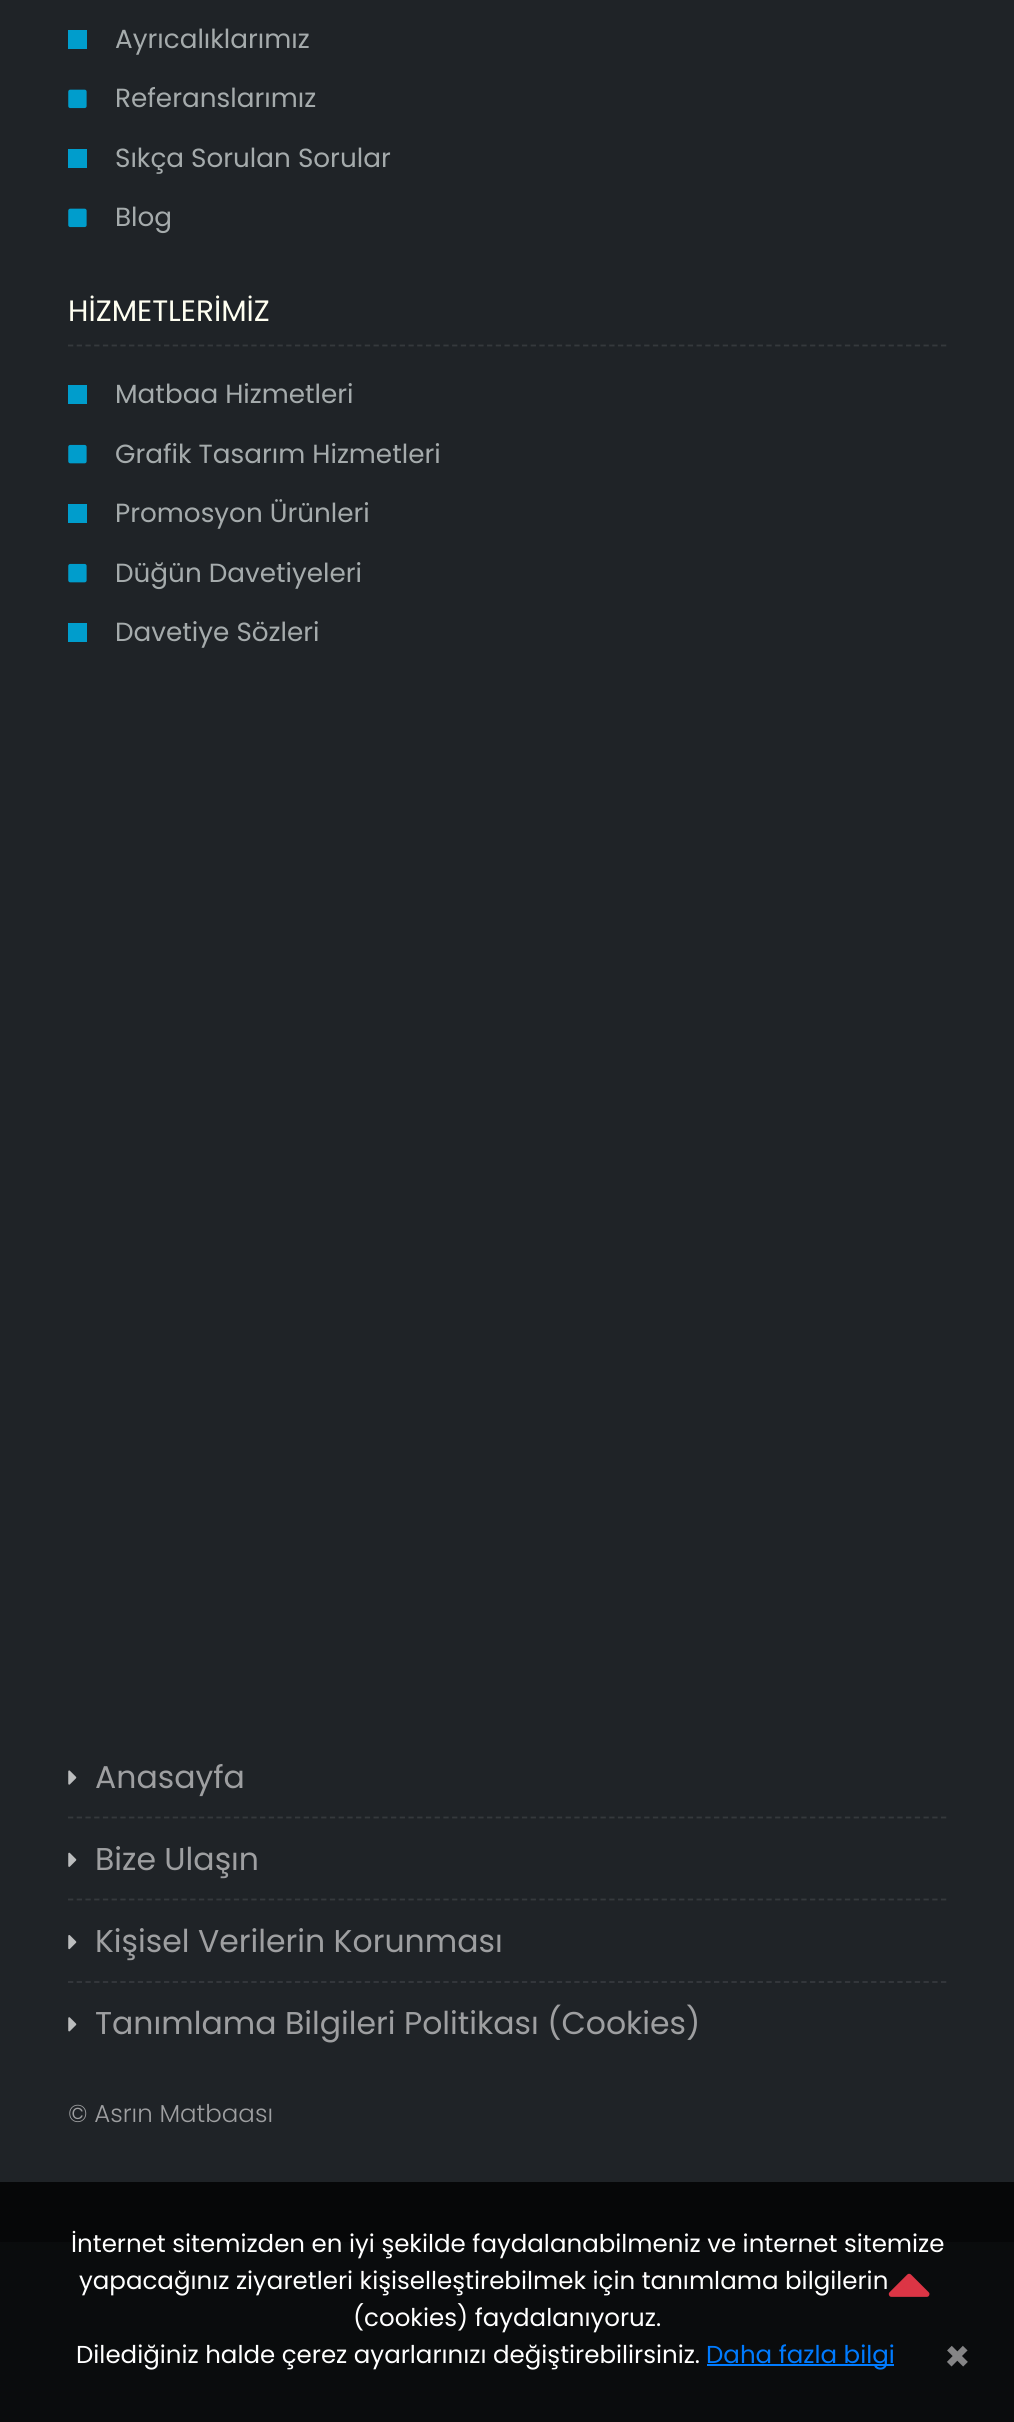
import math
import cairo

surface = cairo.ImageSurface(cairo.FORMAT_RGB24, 1014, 2422)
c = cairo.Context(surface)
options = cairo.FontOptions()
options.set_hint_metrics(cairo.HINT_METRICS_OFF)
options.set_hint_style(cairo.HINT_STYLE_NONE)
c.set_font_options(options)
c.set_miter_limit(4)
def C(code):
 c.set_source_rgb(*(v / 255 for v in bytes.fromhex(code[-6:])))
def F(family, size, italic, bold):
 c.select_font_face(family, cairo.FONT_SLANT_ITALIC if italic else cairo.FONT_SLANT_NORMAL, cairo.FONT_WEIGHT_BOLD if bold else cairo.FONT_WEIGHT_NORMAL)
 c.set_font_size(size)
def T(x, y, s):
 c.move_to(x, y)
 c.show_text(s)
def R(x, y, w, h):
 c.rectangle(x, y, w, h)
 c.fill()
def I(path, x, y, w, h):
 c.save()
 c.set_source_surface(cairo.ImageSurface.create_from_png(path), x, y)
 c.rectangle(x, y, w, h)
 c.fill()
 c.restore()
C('0a0c0d')
c.paint()
C('1f2327')
R(0,0,1014,2182)
C('060708')
R(0,2182,1014,60)
C('009dcc')
R(68,30,19,19)
F('Poppins',26.25,0,0)
C('a5abac')
T(115,48,'Ayrıcalıklarımız')
I('1.png',68,89,19,20)
T(115,107,'Referanslarımız')
C('009dcc')
R(68,149,19,19)
C('a5abac')
T(115,167,'Sıkça Sorulan Sorular')
I('1.png',68,208,19,20)
T(115,226,'Blog')
c.new_path()
c.move_to(68,345.5)
c.line_to(947,345.5)
C('35393d')
c.set_line_width(1.8)
c.set_dash([5.25,3.48])
c.stroke()
F('Poppins',29.5,0,0)
C('fffff1')
T(68,321,'HİZMETLERİMİZ')
C('009dcc')
R(68,385,19,19)
F('Poppins',26.25,0,0)
C('a5abac')
T(115,403,'Matbaa Hizmetleri')
I('2.png',68,444,19,20)
T(115,463,'Grafik Tasarım Hizmetleri')
C('009dcc')
R(68,504,19,19)
C('a5abac')
T(115,522,'Promosyon Ürünleri')
I('2.png',68,563,19,20)
T(115,582,'Düğün Davetiyeleri')
C('009dcc')
R(68,623,19,19)
C('a5abac')
T(115,641,'Davetiye Sözleri')
c.new_path()
c.move_to(68,1817.5)
c.line_to(947,1817.5)
C('35393d')
c.stroke()
I('3.png',68,1770,9,15)
F('Poppins',31.5,0,0)
C('9e9fa1')
T(95,1788,'Anasayfa')
c.new_path()
c.move_to(68,1899.5)
c.line_to(947,1899.5)
C('35393d')
c.stroke()
I('4.png',68,1852,9,15)
C('9e9fa1')
T(95,1870,'Bize Ulaşın')
c.new_path()
c.move_to(68,1982)
c.line_to(947,1982)
C('35393d')
c.stroke()
I('5.png',68,1935,9,15)
C('9e9fa1')
T(95,1952,'Kişisel Verilerin Korunması')
I('6.png',68,2017,9,15)
T(95,2034,'Tanımlama Bilgileri Politikası (Cookies)')
F('Poppins Light',24.5,0,0)
T(68,2122,'© Asrın Matbaası')
F('Poppins',24.5,0,0)
C('ffffff')
T(71,2252,'İnternet sitemizden en iyi şekilde faydalanabilmeniz ve internet sitemize')
T(79,2289,'yapacağınız ziyaretleri kişiselleştirebilmek için tanımlama bilgilerin')
T(353,2326,'(cookies) faydalanıyoruz.')
T(76,2363,'Dilediğiniz halde çerez ayarlarınızı değiştirebilirsiniz.')
C('007bff')
R(707,2364,187,2)
T(706,2363,'Daha fazla bilgi')
F('Poppins',42,0,1)
C('858586')
T(944,2371,'×')
I('7.png',888,2273,42,24)
surface.write_to_png('o.png')
